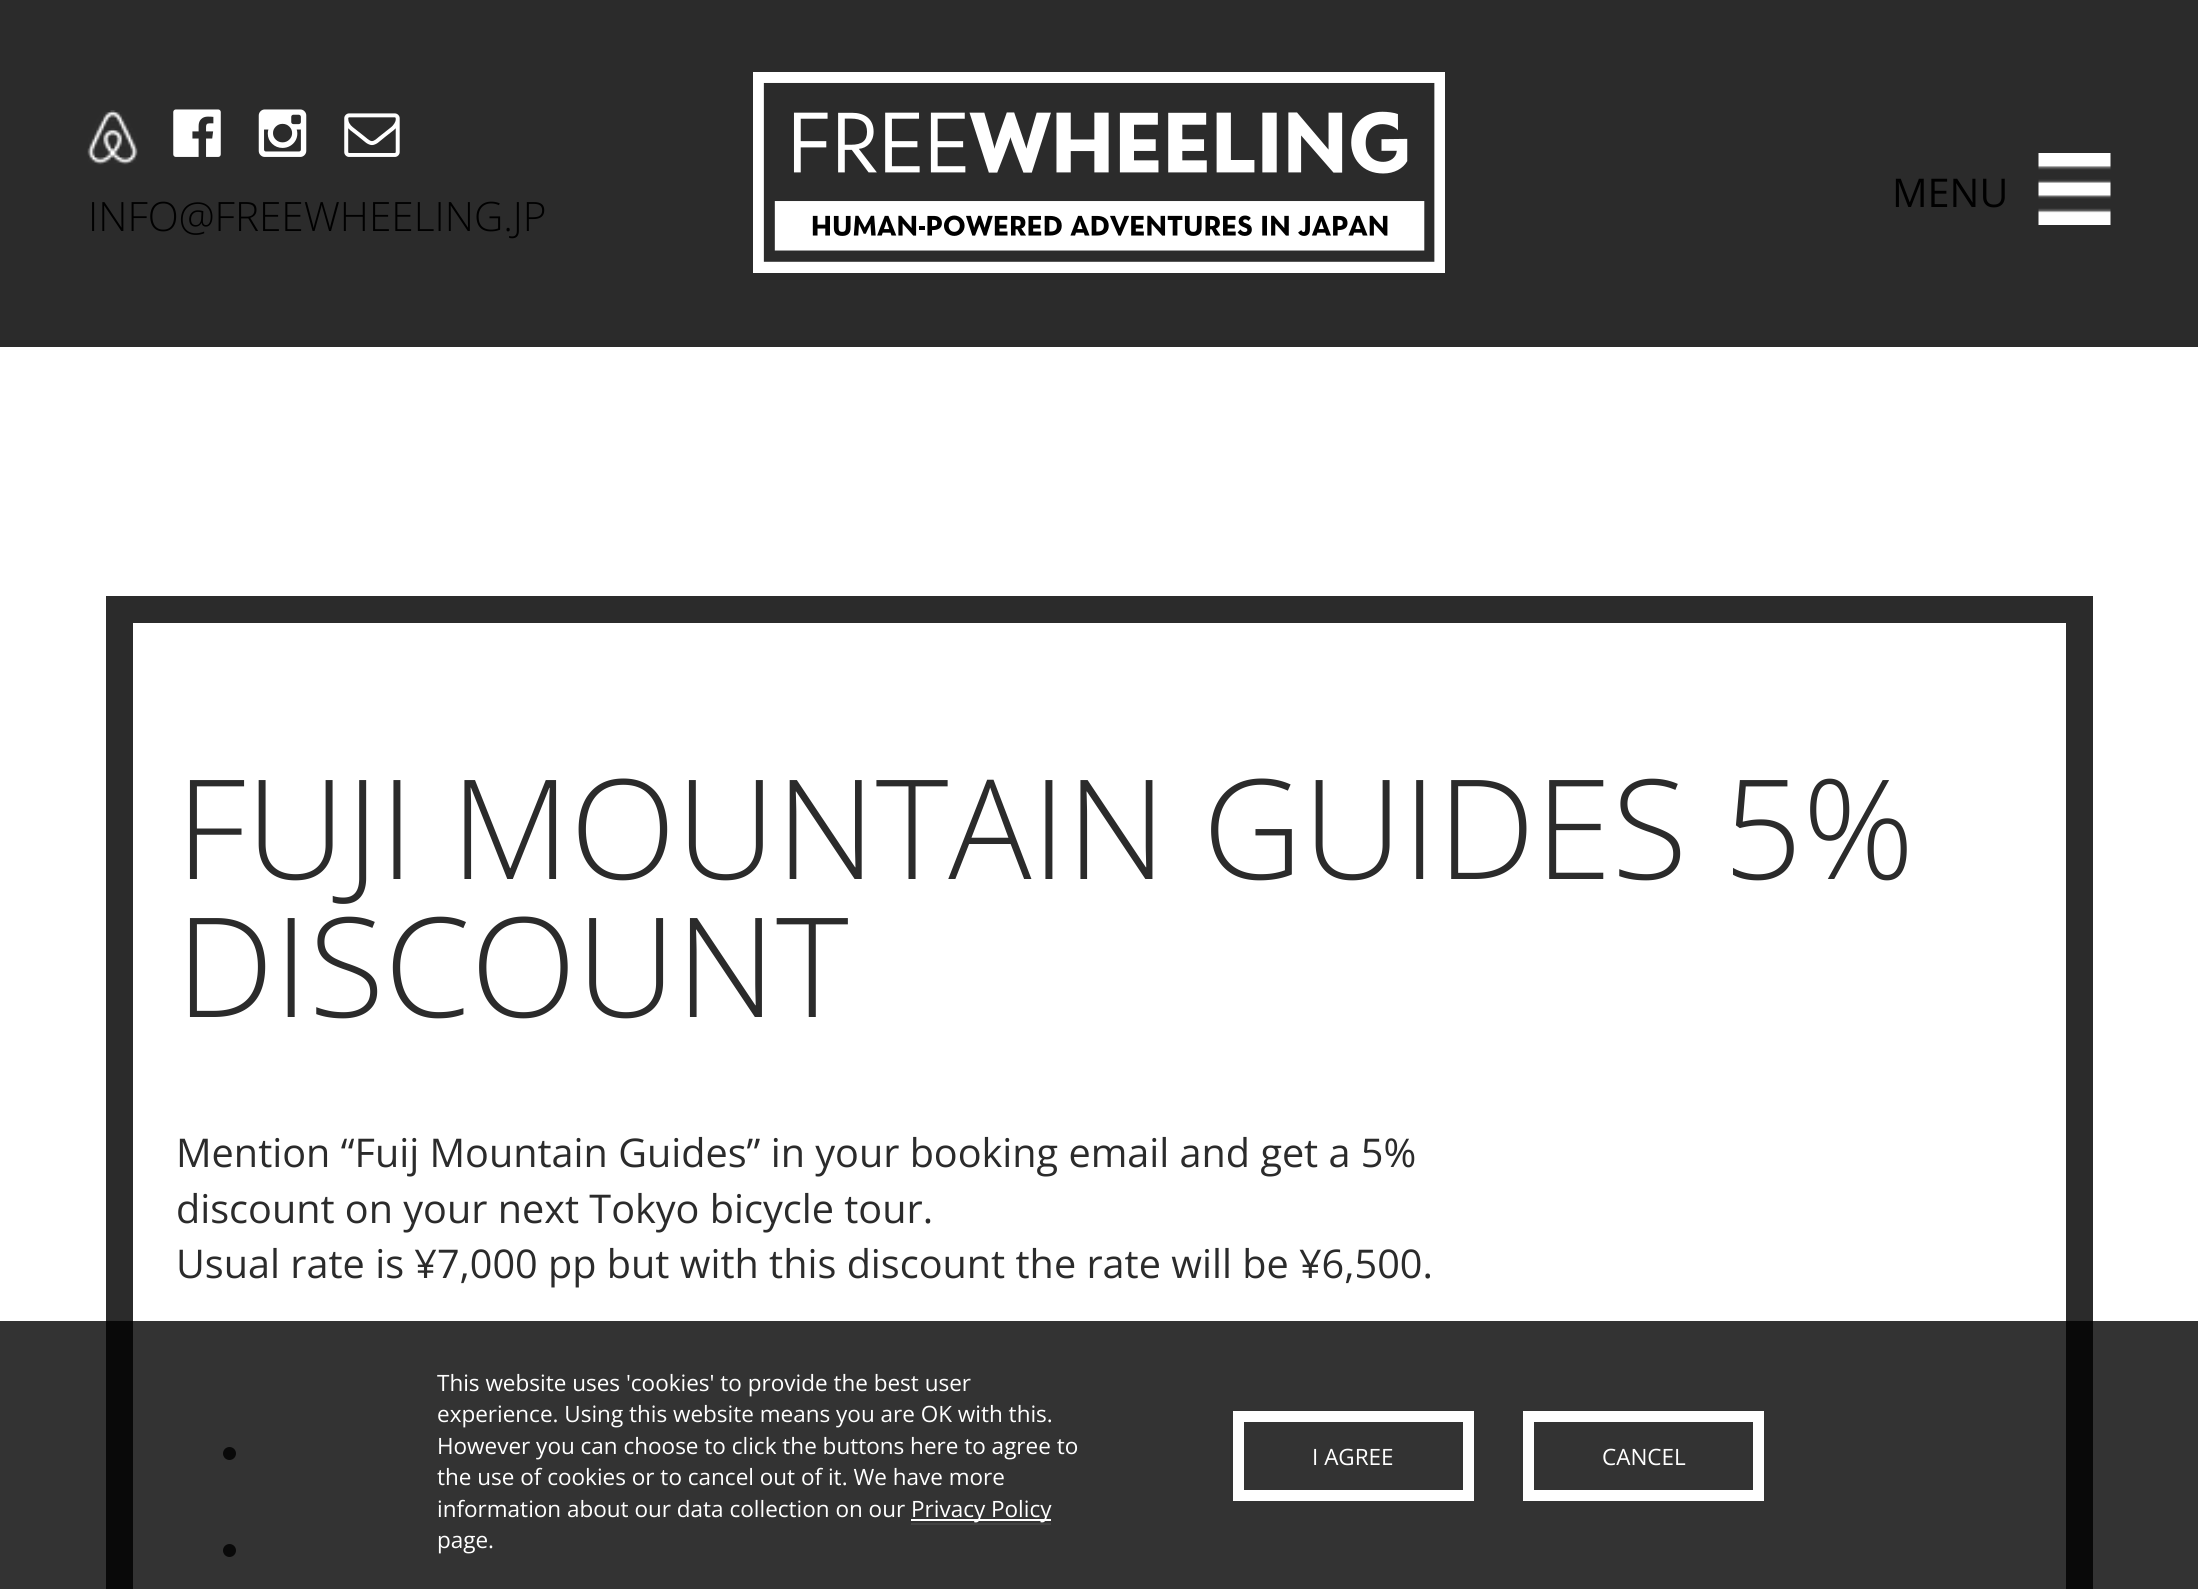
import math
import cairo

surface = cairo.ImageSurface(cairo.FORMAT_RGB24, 2198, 1589)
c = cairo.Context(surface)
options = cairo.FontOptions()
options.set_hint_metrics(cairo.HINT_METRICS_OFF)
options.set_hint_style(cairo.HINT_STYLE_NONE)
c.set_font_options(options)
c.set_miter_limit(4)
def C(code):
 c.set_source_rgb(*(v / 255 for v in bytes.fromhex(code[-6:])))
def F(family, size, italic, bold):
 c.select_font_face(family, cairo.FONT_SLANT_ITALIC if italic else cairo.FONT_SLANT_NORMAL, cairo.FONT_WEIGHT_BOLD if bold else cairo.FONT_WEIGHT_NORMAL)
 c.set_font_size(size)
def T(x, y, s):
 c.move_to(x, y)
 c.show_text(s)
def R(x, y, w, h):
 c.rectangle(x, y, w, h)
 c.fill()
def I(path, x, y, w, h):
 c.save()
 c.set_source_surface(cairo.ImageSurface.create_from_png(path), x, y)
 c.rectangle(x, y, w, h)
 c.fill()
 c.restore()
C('ffffff')
c.paint()
C('2b2b2b')
R(0,0,2198,347)
I('1.png',753,72,692,201)
I('2.png',2038,153,73,72)
F('Open Sans',39.6,0,0)
C('000000')
T(1892,207,'MENU')
I('3.png',87,110,51,55)
I('4.png',173,109,48,48)
I('5.png',258,109,49,48)
I('6.png',344,113,56,44)
F('Open Sans Light',40.5,0,0)
T(88,231,'INFO@FREEWHEELING.JP')
c.rectangle(119.5,609.5,1960,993)
C('2b2b2b')
c.set_line_width(27)
c.stroke()
F('Open Sans Light',138.6,0,0)
T(176,879,'FUJI MOUNTAIN GUIDES 5%')
T(176,1017,'DISCOUNT')
F('Open Sans',39.6,0,0)
T(176,1167,'Mention “Fuij Mountain Guides” in your booking email and get a 5%')
T(176,1223,'discount on your next Tokyo bicycle tour.')
T(176,1278,'Usual rate is ¥7,000 pp but with this discount the rate will be ¥6,500.')
c.new_path()
c.arc(229.5,1453.5,6.5,0,2 * math.pi)
c.fill()
c.arc(229.5,1550.5,6.5,0,2 * math.pi)
c.fill()
c.set_source_rgba(0,0,0,0.8)
R(0,1321,2198,268)
F('Open Sans',22.5,0,0)
C('ffffff')
T(437,1391,'This website uses \'cookies\' to provide the best user')
T(437,1422,'experience. Using this website means you are OK with this.')
T(437,1454,'However you can choose to click the buttons here to agree to')
T(437,1485,'the use of cookies or to cancel out of it. We have more')
T(437,1517,'information about our data collection on our')
R(911,1519,140,2)
T(911,1517,'Privacy Policy')
C('424242')
R(911,1523,140,2)
C('ffffff')
T(437,1548,'page.')
c.rectangle(1238.5,1416.5,230,79)
c.set_line_width(11)
c.stroke()
T(1312,1465,'I AGREE')
c.rectangle(1528.5,1416.5,230,79)
c.stroke()
T(1602,1465,'CANCEL')
surface.write_to_png('o.png')
